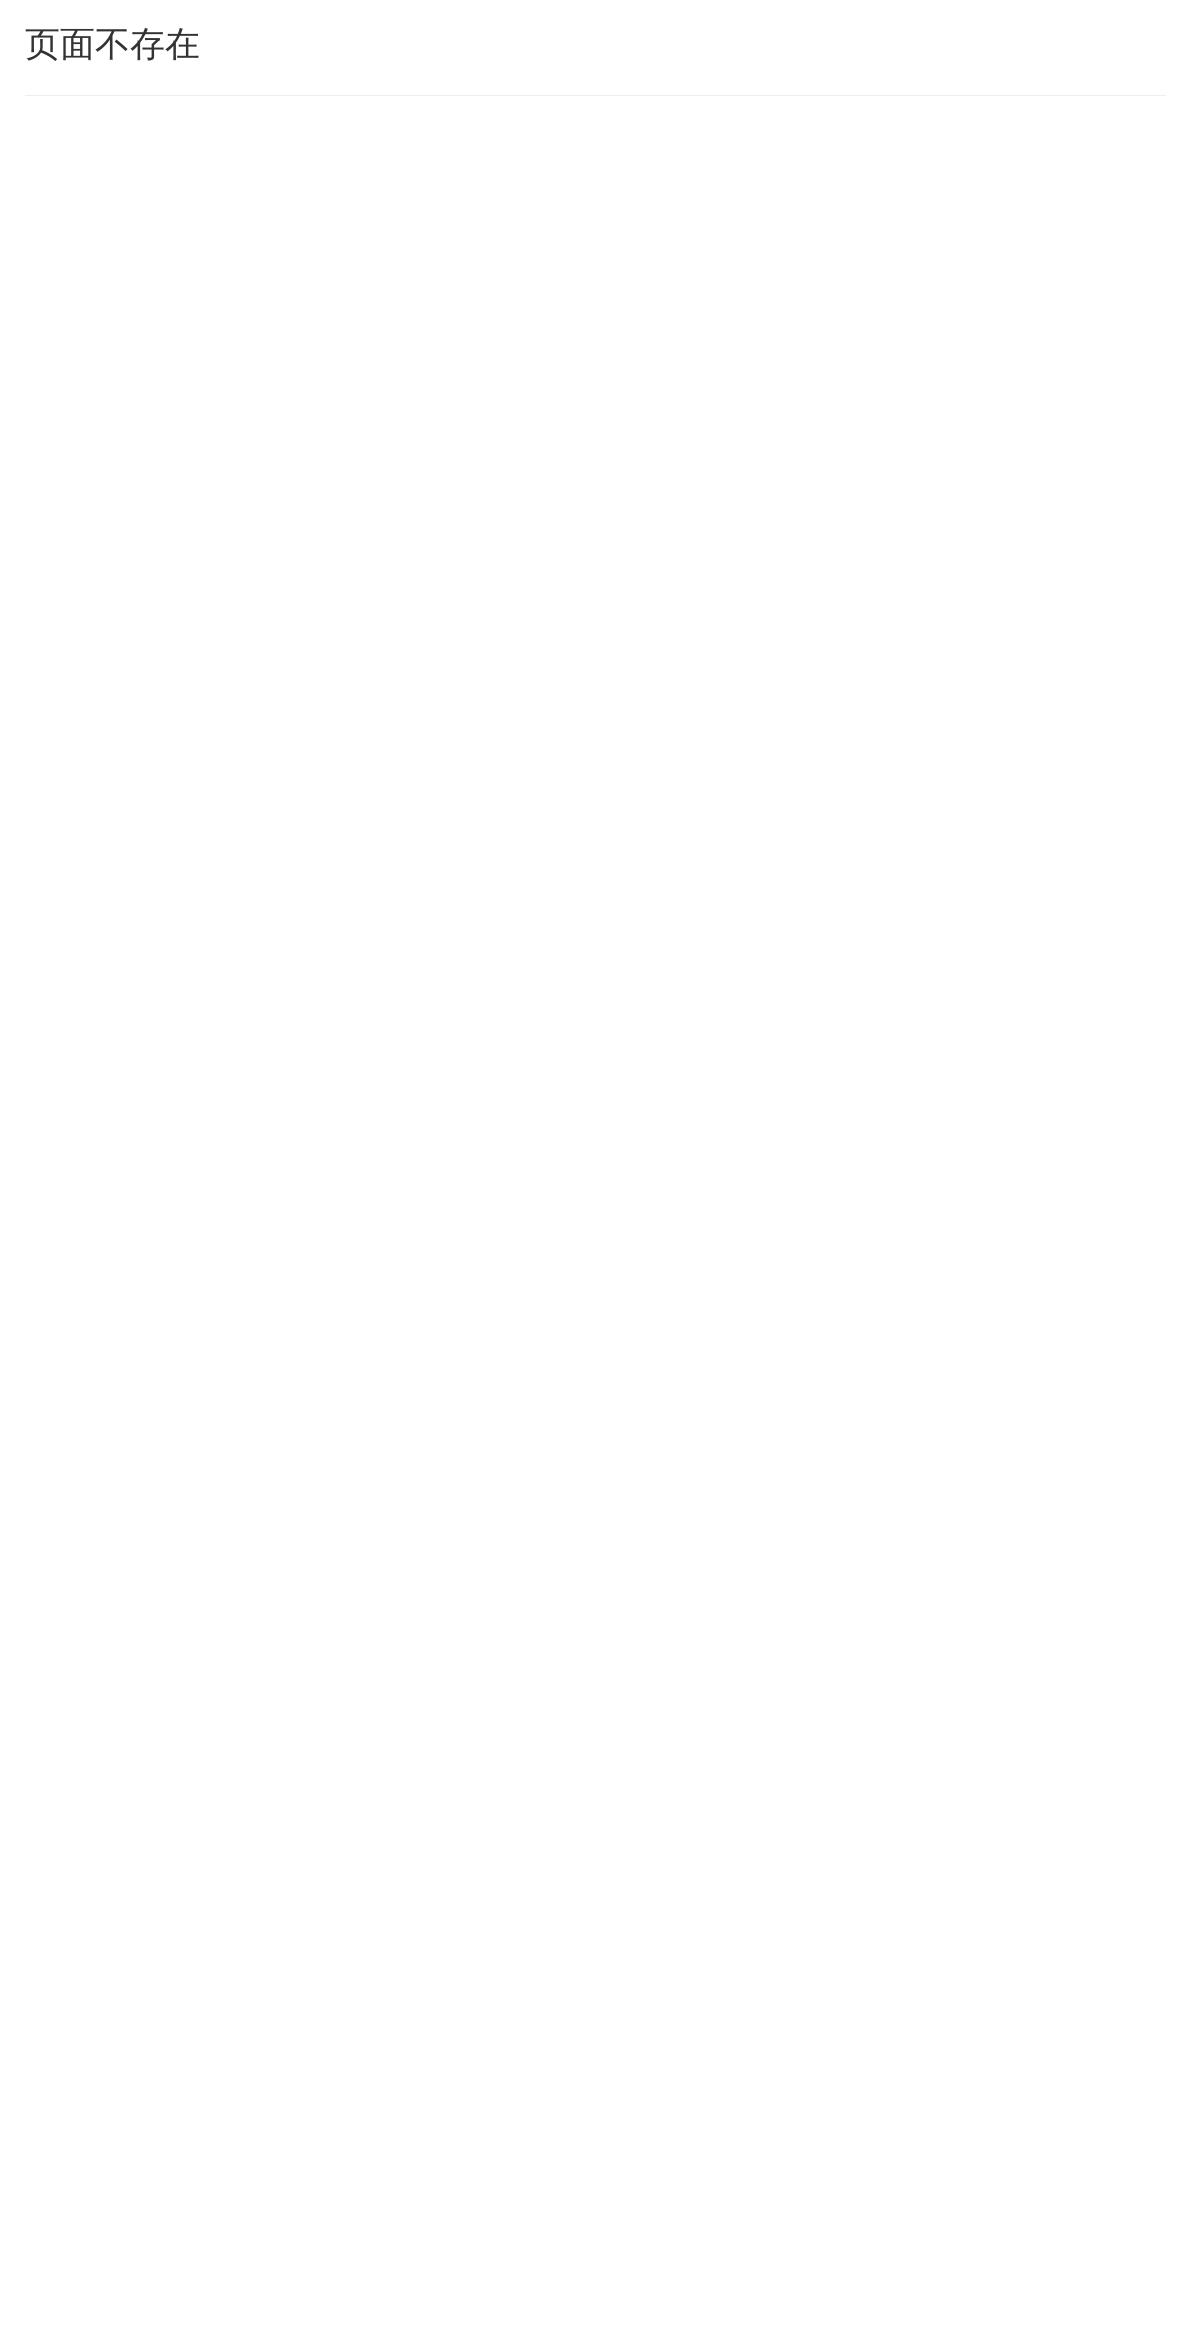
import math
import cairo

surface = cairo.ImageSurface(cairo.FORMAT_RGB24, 1191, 2327)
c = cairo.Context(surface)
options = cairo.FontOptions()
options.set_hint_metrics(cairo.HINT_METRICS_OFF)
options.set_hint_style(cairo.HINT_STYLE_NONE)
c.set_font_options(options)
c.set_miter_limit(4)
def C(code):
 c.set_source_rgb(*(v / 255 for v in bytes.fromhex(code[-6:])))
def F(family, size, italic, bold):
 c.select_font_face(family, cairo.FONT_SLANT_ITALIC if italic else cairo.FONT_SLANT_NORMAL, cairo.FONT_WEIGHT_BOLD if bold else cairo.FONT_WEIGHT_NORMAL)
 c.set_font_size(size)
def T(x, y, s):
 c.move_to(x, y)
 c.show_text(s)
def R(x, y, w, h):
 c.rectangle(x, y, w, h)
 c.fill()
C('ffffff')
c.paint()
F('WenQuanYi Zen Hei Medium',35,0,0)
C('333333')
T(25,56,'页面不存在')
C('eeeeee')
R(25,95,1141,1)
surface.write_to_png('o.png')
